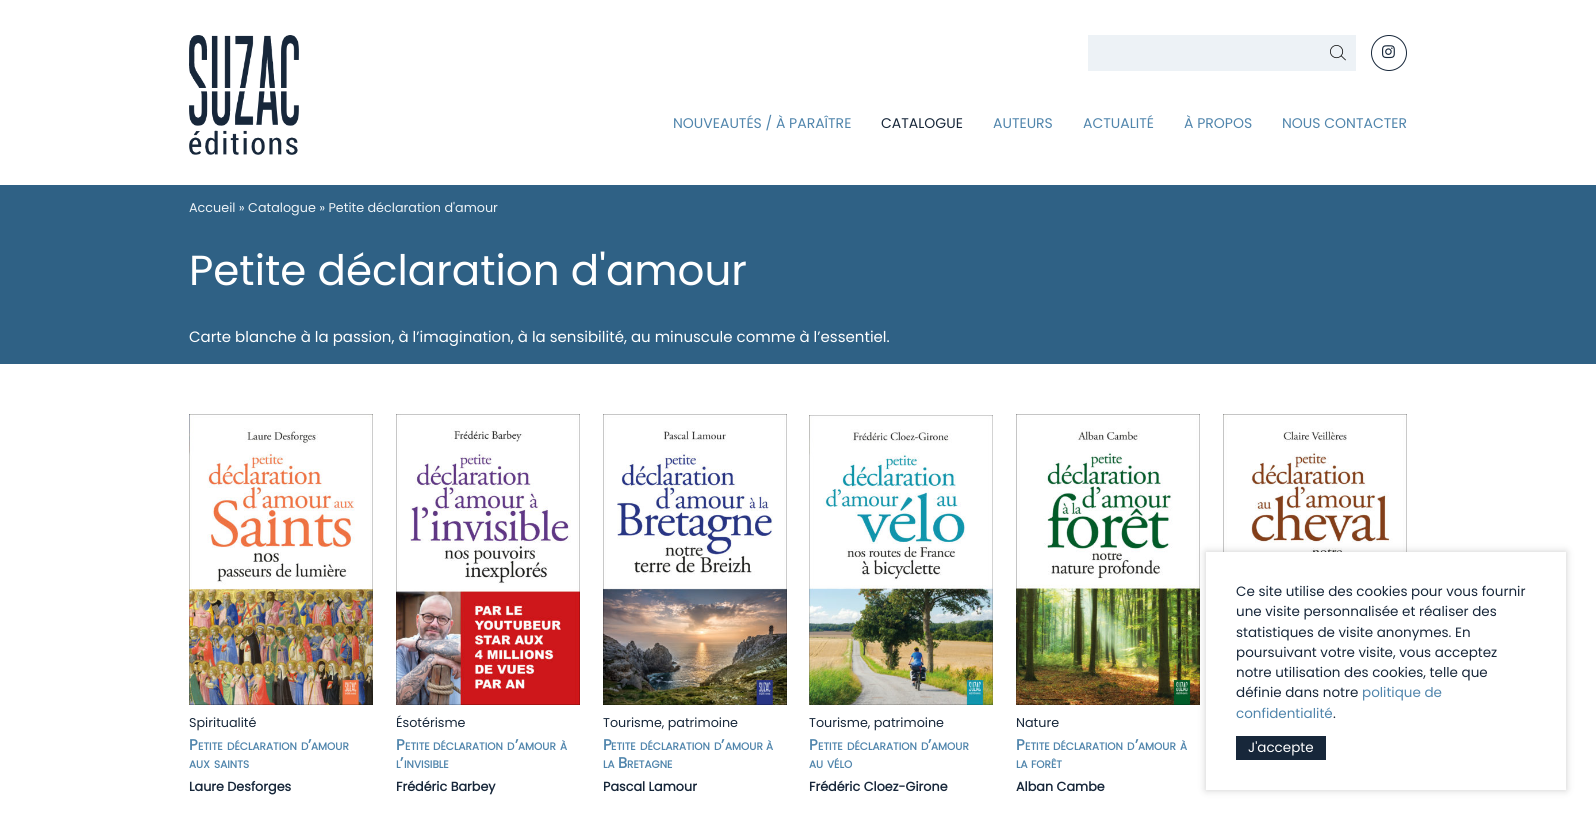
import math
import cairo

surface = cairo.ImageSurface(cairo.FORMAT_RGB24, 1596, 820)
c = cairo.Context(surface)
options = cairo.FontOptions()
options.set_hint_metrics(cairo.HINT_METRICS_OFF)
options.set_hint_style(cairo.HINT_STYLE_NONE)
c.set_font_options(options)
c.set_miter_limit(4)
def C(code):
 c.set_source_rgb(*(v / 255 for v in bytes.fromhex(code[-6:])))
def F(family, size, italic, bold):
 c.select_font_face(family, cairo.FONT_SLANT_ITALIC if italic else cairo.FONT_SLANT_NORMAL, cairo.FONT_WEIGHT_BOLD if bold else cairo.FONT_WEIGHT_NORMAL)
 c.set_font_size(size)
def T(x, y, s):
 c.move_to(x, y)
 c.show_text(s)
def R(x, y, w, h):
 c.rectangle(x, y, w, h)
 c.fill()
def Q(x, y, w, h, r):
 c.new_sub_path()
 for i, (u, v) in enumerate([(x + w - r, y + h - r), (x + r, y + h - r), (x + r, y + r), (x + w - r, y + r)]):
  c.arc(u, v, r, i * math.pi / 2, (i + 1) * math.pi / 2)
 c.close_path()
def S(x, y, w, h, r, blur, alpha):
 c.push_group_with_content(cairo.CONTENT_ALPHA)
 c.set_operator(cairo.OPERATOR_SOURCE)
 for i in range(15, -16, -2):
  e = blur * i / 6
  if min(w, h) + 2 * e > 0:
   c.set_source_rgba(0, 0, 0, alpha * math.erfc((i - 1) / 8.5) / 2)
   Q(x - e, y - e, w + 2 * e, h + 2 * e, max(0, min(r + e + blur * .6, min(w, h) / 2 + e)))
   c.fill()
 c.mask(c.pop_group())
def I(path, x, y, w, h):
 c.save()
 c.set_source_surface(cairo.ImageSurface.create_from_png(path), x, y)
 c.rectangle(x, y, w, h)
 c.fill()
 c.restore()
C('ffffff')
c.paint()
I('1.png',189,35,110,120)
C('edf2f6')
R(1088,35,268,36)
I('2.png',1330,45,16,16)
c.arc(1389,53,17.5,0,2 * math.pi)
C('17273a')
c.set_line_width(1)
c.stroke()
I('3.png',1382,45,13,14)
F('Poppins',14,0,0)
C('5085ac')
T(673,128,'NOUVEAUTÉS / À PARAÎTRE')
C('17273a')
T(881,128,'CATALOGUE')
C('5085ac')
T(993,128,'AUTEURS')
T(1083,128,'ACTUALITÉ')
T(1184,128,'À PROPOS')
T(1282,128,'NOUS CONTACTER')
C('2f6185')
R(0,185,1596,179)
F('Poppins',12.75,0,0)
C('edf2f6')
T(189,212,'Accueil » Catalogue » Petite déclaration d\'amour')
F('Poppins',42,0,0)
C('ffffff')
T(189,285,'Petite déclaration d\'amour')
F('Poppins',15,0,0)
T(189,342,'Carte blanche à la passion, à l’imagination, à la sensibilité, au minuscule comme à l’essentiel.')
I('4.png',1223,414,184,138)
I('5.png',189,414,184,291)
F('Poppins',12.75,0,0)
C('17273a')
T(189,727,'Spiritualité')
F('Poppins',15,0,1)
C('5085ac')
T(189,750,'P')
F('Poppins',10.5,0,1)
T(198,750,'ETITE')
T(227,750,'DÉCLARATION')
T(301,750,'D')
F('Poppins',15,0,1)
T(308,750,'’')
F('Poppins',10.5,0,1)
T(311,750,'AMOUR')
T(189,768,'AUX')
T(214,768,'SAINTS')
F('Poppins',12.75,0,1)
C('17273a')
T(189,791,'Laure Desforges')
I('6.png',396,414,184,291)
F('Poppins',12.75,0,0)
T(396,727,'Ésotérisme')
F('Poppins',15,0,1)
C('5085ac')
T(396,750,'P')
F('Poppins',10.5,0,1)
T(405,750,'ETITE')
T(433,750,'DÉCLARATION')
T(507,750,'D')
F('Poppins',15,0,1)
T(515,750,'’')
F('Poppins',10.5,0,1)
T(518,750,'AMOUR')
T(560,750,'À')
F('Poppins',15,0,1)
T(400,768,'’')
F('Poppins',10.5,0,1)
T(396,768,'L')
T(404,768,'INVISIBLE')
F('Poppins',12.75,0,1)
C('17273a')
T(396,791,'Frédéric Barbey')
I('7.png',603,414,184,291)
F('Poppins',12.75,0,0)
T(603,727,'Tourisme, patrimoine')
F('Poppins',15,0,1)
C('5085ac')
T(603,750,'P')
F('Poppins',10.5,0,1)
T(611,750,'ETITE')
T(640,750,'DÉCLARATION')
T(714,750,'D')
F('Poppins',15,0,1)
T(721,750,'’')
F('Poppins',10.5,0,1)
T(725,750,'AMOUR')
T(766,750,'À')
T(603,768,'LA')
F('Poppins',15,0,1)
T(618,768,'B')
F('Poppins',10.5,0,1)
T(627,768,'RETAGNE')
F('Poppins',12.75,0,1)
C('17273a')
T(603,791,'Pascal Lamour')
I('8.png',809,415,184,290)
F('Poppins',12.75,0,0)
T(809,727,'Tourisme, patrimoine')
F('Poppins',15,0,1)
C('5085ac')
T(809,750,'P')
F('Poppins',10.5,0,1)
T(818,750,'ETITE')
T(847,750,'DÉCLARATION')
T(921,750,'D')
F('Poppins',15,0,1)
T(928,750,'’')
F('Poppins',10.5,0,1)
T(931,750,'AMOUR')
T(809,768,'AU')
T(827,768,'VÉLO')
F('Poppins',12.75,0,1)
C('17273a')
T(809,791,'Frédéric Cloez-Girone')
I('9.png',1016,414,184,291)
F('Poppins',12.75,0,0)
T(1016,727,'Nature')
F('Poppins',15,0,1)
C('5085ac')
T(1016,750,'P')
F('Poppins',10.5,0,1)
T(1025,750,'ETITE')
T(1053,750,'DÉCLARATION')
T(1127,750,'D')
F('Poppins',15,0,1)
T(1135,750,'’')
F('Poppins',10.5,0,1)
T(1138,750,'AMOUR')
T(1180,750,'À')
T(1016,768,'LA')
T(1031,768,'FORÊT')
F('Poppins',12.75,0,1)
C('17273a')
T(1016,791,'Alban Cambe')
C('000000')
S(1206,552,360,238,0,4,.2)
C('ffffff')
R(1206,552,360,238)
F('Poppins',13.5,0,0)
C('17273a')
T(1236,596,'Ce site utilise des cookies pour vous fournir')
T(1236,616,'une visite personnalisée et réaliser des')
T(1236,637,'statistiques de visite anonymes. En')
T(1236,657,'poursuivant votre visite, vous acceptez')
T(1236,677,'notre utilisation des cookies, telle que')
T(1236,697,'définie dans notre')
C('5085ac')
T(1362,697,'politique de')
T(1236,718,'confidentialité')
C('17273a')
T(1333,718,'.')
R(1236,736,90,24)
C('ffffff')
T(1248,752,'J\'accepte')
surface.write_to_png('o.png')
